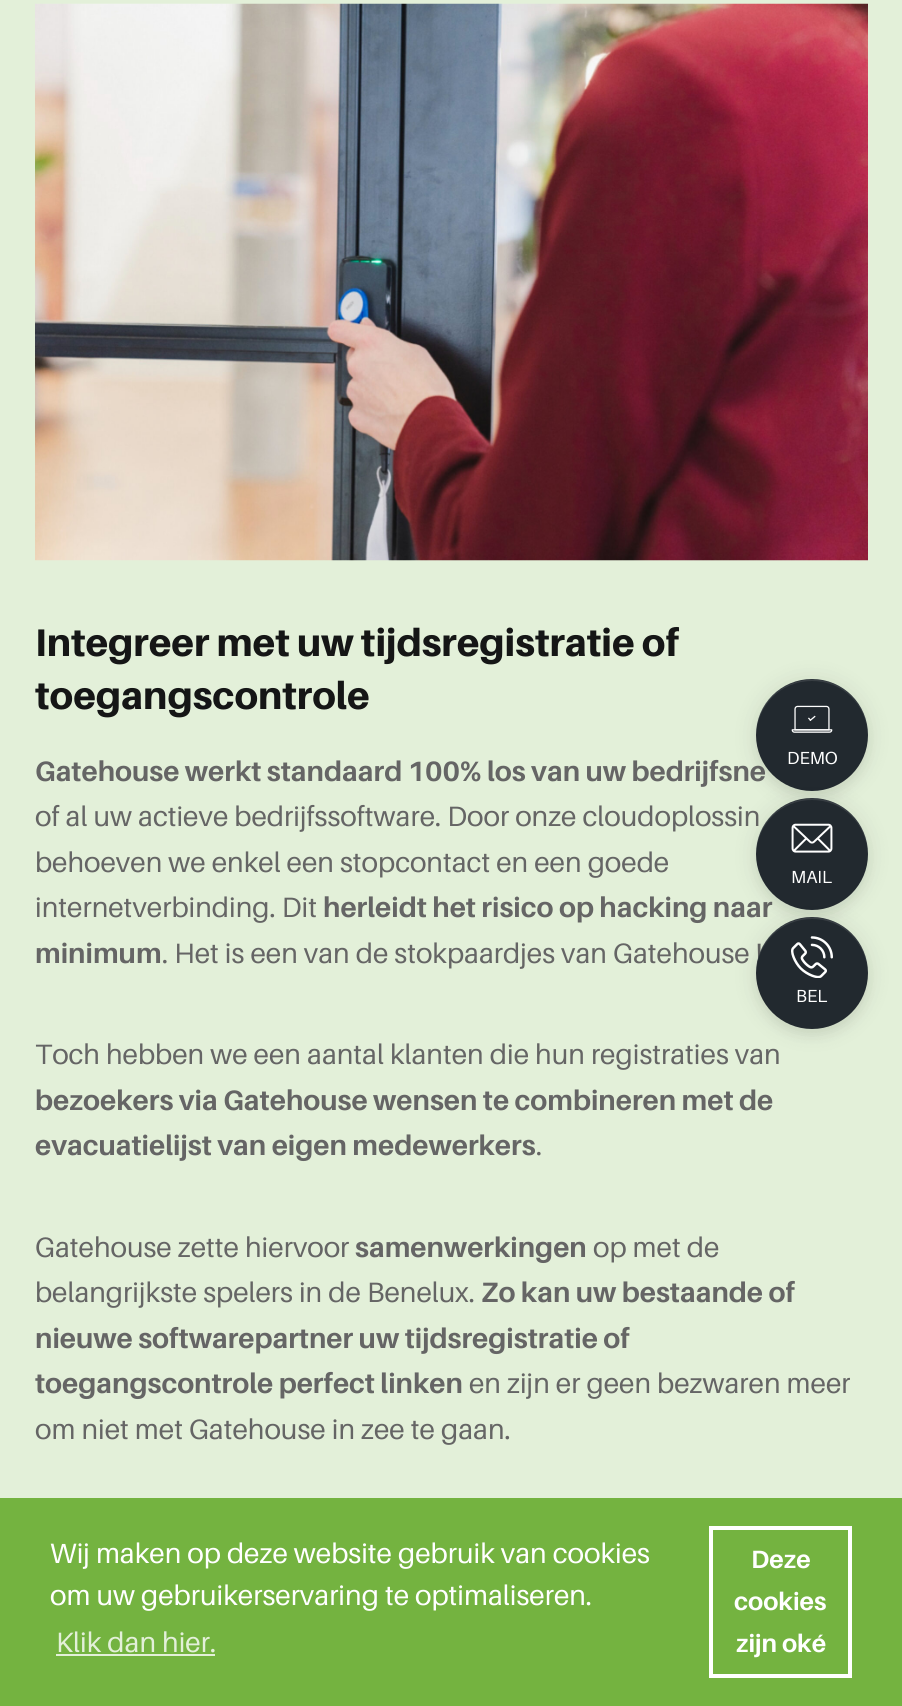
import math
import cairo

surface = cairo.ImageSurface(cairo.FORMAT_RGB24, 902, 1706)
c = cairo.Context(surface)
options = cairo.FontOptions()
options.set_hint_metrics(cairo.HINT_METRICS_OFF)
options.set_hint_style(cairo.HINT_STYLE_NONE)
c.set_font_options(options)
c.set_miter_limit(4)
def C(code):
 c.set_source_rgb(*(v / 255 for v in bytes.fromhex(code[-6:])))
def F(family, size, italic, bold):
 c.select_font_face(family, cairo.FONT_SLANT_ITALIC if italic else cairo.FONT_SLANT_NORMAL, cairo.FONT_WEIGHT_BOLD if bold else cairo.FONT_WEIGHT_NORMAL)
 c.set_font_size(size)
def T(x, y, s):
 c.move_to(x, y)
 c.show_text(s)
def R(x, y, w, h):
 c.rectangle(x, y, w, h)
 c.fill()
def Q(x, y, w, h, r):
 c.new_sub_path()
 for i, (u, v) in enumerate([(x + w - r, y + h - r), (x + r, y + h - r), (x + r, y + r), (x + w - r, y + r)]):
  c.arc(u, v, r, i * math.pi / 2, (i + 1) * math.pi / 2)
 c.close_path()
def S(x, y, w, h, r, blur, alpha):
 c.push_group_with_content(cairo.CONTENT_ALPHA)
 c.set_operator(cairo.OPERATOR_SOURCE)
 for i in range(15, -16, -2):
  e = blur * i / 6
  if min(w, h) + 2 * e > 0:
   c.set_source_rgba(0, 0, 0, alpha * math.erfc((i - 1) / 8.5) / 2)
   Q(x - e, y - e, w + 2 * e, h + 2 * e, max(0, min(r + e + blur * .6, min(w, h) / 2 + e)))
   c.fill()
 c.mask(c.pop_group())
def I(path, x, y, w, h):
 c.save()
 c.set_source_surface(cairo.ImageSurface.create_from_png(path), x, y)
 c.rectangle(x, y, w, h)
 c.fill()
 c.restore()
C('e3f0d9')
c.paint()
I('1.png',35,3,833,558)
F('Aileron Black',38.5,0,0)
C('151616')
T(35,656,'Integreer met uw tijdsregistratie of')
T(35,709,'toegangscontrole')
F('Aileron',28,0,1)
C('656565')
T(35,781,'Gatehouse werkt standaard 100% los van uw bedrijfsne')
F('Aileron',28,0,0)
T(35,826,'of al uw actieve bedrijfssoftware. Door onze cloudoplossin')
T(35,872,'behoeven we enkel een stopcontact en een goede')
T(35,917,'internetverbinding. Dit')
F('Aileron',28,0,1)
T(323,917,'herleidt het risico op hacking naar')
T(35,963,'minimum')
F('Aileron',28,0,0)
T(162,963,'. Het is een van de stokpaardjes van Gatehouse !')
T(35,1064,'Toch hebben we een aantal klanten die hun registraties van')
F('Aileron',28,0,1)
T(35,1110,'bezoekers via Gatehouse wensen te combineren met de')
T(35,1155,'evacuatielijst van eigen medewerkers')
F('Aileron',28,0,0)
T(536,1155,'.')
T(35,1257,'Gatehouse zette hiervoor')
F('Aileron',28,0,1)
T(355,1257,'samenwerkingen')
F('Aileron',28,0,0)
T(593,1257,'op met de')
T(35,1302,'belangrijkste spelers in de Benelux.')
F('Aileron',28,0,1)
T(481,1302,'Zo kan uw bestaande of')
T(35,1348,'nieuwe softwarepartner uw tijdsregistratie of')
T(35,1393,'toegangscontrole perfect linken')
F('Aileron',28,0,0)
T(469,1393,'en zijn er geen bezwaren meer')
T(35,1439,'om niet met Gatehouse in zee te gaan.')
C('000000')
S(756,686,112,112,56,5,.05)
S(756,681,112,112,56,11.5,.1)
C('22292f')
c.arc(812,735,56,0,2 * math.pi)
c.fill()
c.set_source_rgba(1,1,1,0.1)
c.new_path()
c.move_to(812,681)
c.curve_to(843,681,867,705,868,736)
c.curve_to(868,725,865,713,858,704)
c.curve_to(827,658,755,681,756,736)
c.curve_to(757,705,781,681,812,681)
c.close_path()
c.fill()
I('2.png',791,705,42,28)
C('000000')
S(756,800,112,112,56,11.5,.1)
F('Aileron',17.5,0,0)
C('ffffff')
T(787,764,'DEMO')
C('000000')
S(756,805,112,112,56,5,.05)
C('22292f')
c.arc(812,854,56,0,2 * math.pi)
c.fill()
c.set_source_rgba(1,1,1,0.1)
c.new_path()
c.move_to(812,800)
c.curve_to(843,800,867,824,868,855)
c.curve_to(868,844,865,832,858,823)
c.curve_to(827,777,755,800,756,855)
c.curve_to(757,824,781,800,812,800)
c.close_path()
c.fill()
I('3.png',791,823,42,30)
C('ffffff')
T(791,883,'MAIL')
C('000000')
S(756,924,112,112,56,5,.05)
S(756,919,112,112,56,11.5,.1)
C('22292f')
c.arc(812,973,56,0,2 * math.pi)
c.fill()
c.set_source_rgba(1,1,1,0.1)
c.new_path()
c.move_to(812,919)
c.curve_to(843,919,867,943,868,974)
c.curve_to(868,963,865,951,858,942)
c.curve_to(827,896,755,919,756,974)
c.curve_to(757,943,781,919,812,919)
c.close_path()
c.fill()
I('4.png',791,936,42,42)
C('ffffff')
T(796,1002,'BEL')
C('74b340')
R(0,1498,902,208)
F('Aileron',28,0,0)
C('ffffff')
T(50,1563,'Wij maken op deze website gebruik van cookies')
T(50,1605,'om uw gebruikerservaring te optimaliseren.')
C('e3f0d9')
T(56,1652,'Klik dan hier.')
R(56,1654,159,2)
c.rectangle(711,1528,139,148)
C('ffffff')
c.set_line_width(4)
c.stroke()
F('Aileron',25,0,1)
T(751,1568,'Deze')
T(734,1610,'cookies')
T(736,1652,'zijn oké')
surface.write_to_png('o.png')
